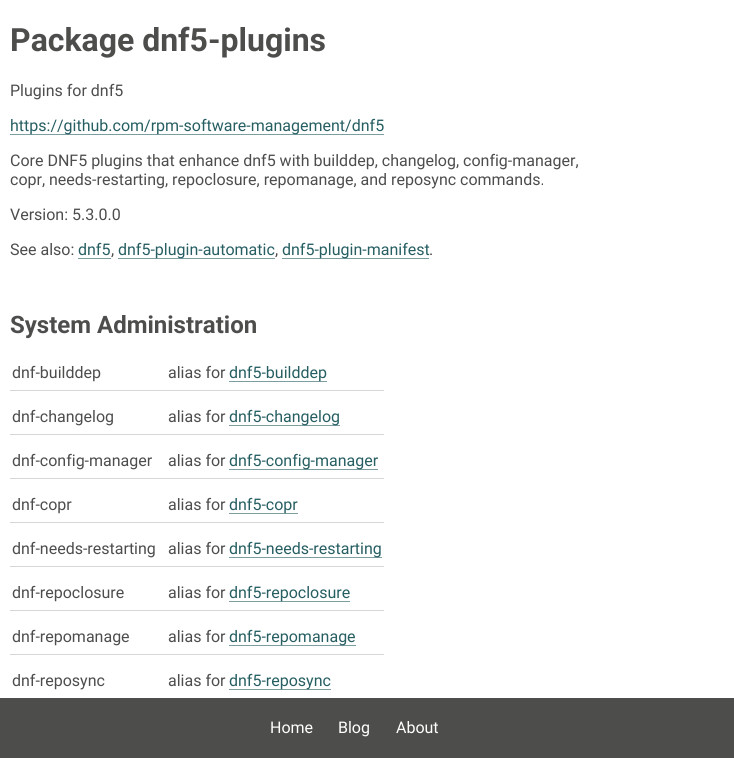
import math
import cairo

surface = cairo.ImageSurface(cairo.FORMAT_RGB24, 734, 758)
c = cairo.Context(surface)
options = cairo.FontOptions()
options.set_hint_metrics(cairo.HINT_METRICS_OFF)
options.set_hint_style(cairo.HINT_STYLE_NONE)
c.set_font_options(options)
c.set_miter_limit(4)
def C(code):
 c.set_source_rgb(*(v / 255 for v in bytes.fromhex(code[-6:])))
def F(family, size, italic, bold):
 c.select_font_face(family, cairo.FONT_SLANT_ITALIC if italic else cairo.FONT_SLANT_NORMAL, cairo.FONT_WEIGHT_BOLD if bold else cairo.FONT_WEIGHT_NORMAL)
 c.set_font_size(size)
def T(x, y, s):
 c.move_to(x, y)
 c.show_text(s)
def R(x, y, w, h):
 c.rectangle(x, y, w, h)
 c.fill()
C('ffffff')
c.paint()
F('Roboto',32,0,1)
C('4d4d4c')
T(10,51,'Package dnf5-plugins')
F('Roboto',16,0,0)
T(10,96,'Plugins for dnf5')
C('7d9ea1')
R(10,134,374,1)
C('265e62')
T(10,131,'https://github.com/rpm-software-management/dnf5')
C('4d4d4c')
T(10,166,'Core DNF5 plugins that enhance dnf5 with builddep, changelog, config-manager,')
T(10,185,'copr, needs-restarting, repoclosure, repomanage, and reposync commands.')
T(10,220,'Version: 5.3.0.0')
T(10,255,'See also:')
C('265e62')
T(78,255,'dnf5')
C('7d9ea1')
R(78,258,33,1)
C('4d4d4c')
T(111,255,',')
C('7d9ea1')
R(118,258,157,1)
C('265e62')
T(118,255,'dnf5-plugin-automatic')
C('4d4d4c')
T(275,255,',')
C('7d9ea1')
R(282,258,147,1)
C('265e62')
T(282,255,'dnf5-plugin-manifest')
C('4d4d4c')
T(429,255,'.')
F('Roboto',24,0,1)
T(10,333,'System Administration')
F('Roboto',16,0,0)
T(12,378,'dnf-builddep')
C('d6d6d6')
R(10,390,374,1)
C('4d4d4c')
T(168,378,'alias for')
C('7d9ea1')
R(229,381,98,1)
C('265e62')
T(229,378,'dnf5-builddep')
C('4d4d4c')
T(12,422,'dnf-changelog')
C('d6d6d6')
R(10,434,374,1)
C('4d4d4c')
T(168,422,'alias for')
C('7d9ea1')
R(229,425,111,1)
C('265e62')
T(229,422,'dnf5-changelog')
C('4d4d4c')
T(12,466,'dnf-config-manager')
C('d6d6d6')
R(10,478,374,1)
C('4d4d4c')
T(168,466,'alias for')
C('7d9ea1')
R(229,469,149,1)
C('265e62')
T(229,466,'dnf5-config-manager')
C('4d4d4c')
T(12,510,'dnf-copr')
C('d6d6d6')
R(10,522,374,1)
C('4d4d4c')
T(168,510,'alias for')
C('7d9ea1')
R(229,513,69,1)
C('265e62')
T(229,510,'dnf5-copr')
C('4d4d4c')
T(12,554,'dnf-needs-restarting')
C('d6d6d6')
R(10,566,374,1)
C('4d4d4c')
T(168,554,'alias for')
C('7d9ea1')
R(229,557,153,1)
C('265e62')
T(229,554,'dnf5-needs-restarting')
C('4d4d4c')
T(12,598,'dnf-repoclosure')
C('d6d6d6')
R(10,610,374,1)
C('4d4d4c')
T(168,598,'alias for')
C('7d9ea1')
R(229,601,121,1)
C('265e62')
T(229,598,'dnf5-repoclosure')
C('4d4d4c')
T(12,642,'dnf-repomanage')
C('d6d6d6')
R(10,654,374,1)
C('4d4d4c')
T(168,642,'alias for')
C('7d9ea1')
R(229,645,127,1)
C('265e62')
T(229,642,'dnf5-repomanage')
C('4d4d4c')
T(12,686,'dnf-reposync')
T(168,686,'alias for')
C('7d9ea1')
R(229,689,102,1)
C('265e62')
T(229,686,'dnf5-reposync')
C('4d4d4c')
R(0,698,734,60)
C('ffffff')
T(270,733,'Home')
T(338,733,'Blog')
T(396,733,'About')
surface.write_to_png('o.png')
